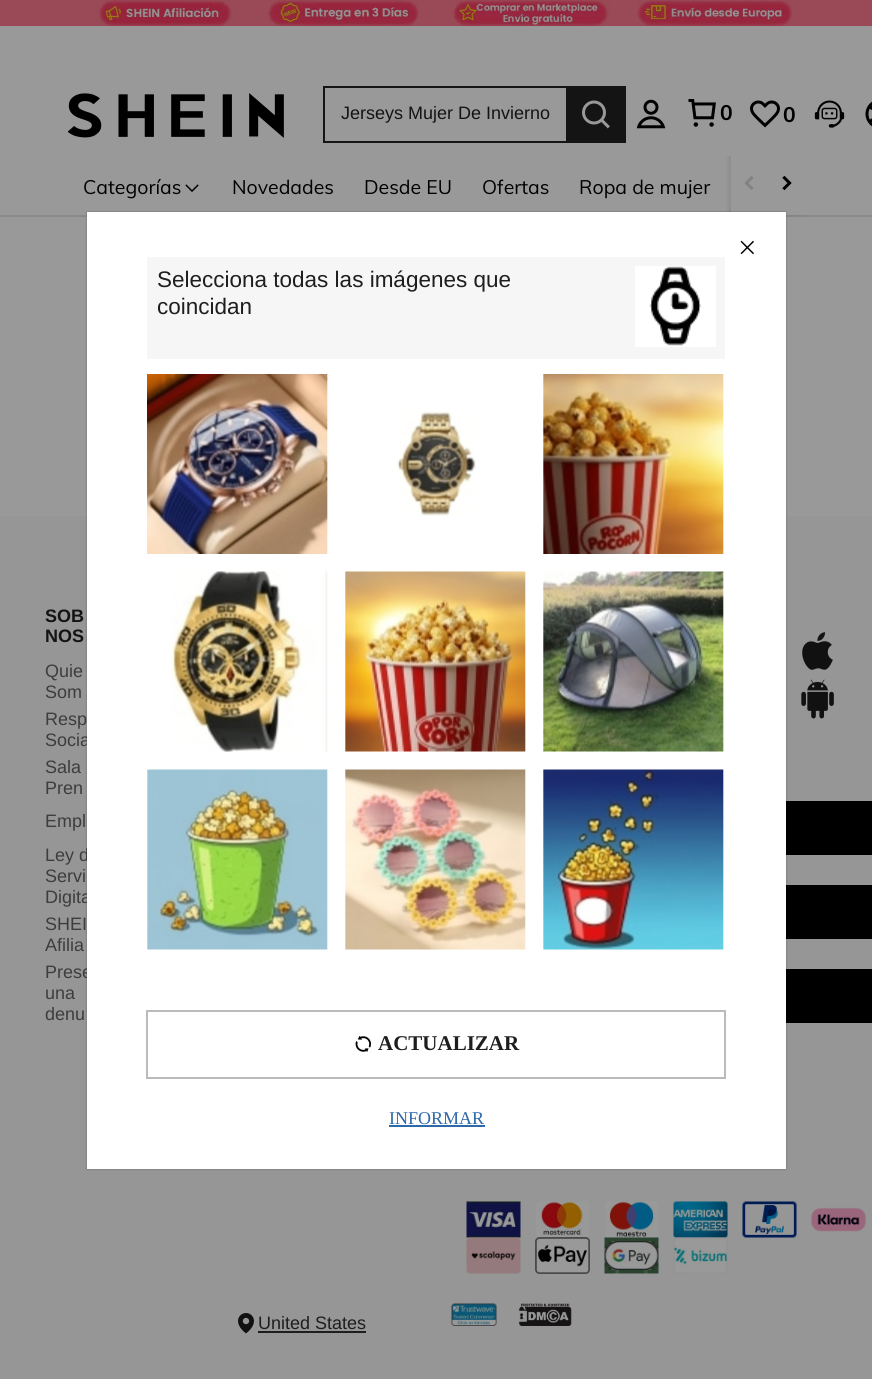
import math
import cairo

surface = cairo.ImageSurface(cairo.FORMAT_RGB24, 872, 1379)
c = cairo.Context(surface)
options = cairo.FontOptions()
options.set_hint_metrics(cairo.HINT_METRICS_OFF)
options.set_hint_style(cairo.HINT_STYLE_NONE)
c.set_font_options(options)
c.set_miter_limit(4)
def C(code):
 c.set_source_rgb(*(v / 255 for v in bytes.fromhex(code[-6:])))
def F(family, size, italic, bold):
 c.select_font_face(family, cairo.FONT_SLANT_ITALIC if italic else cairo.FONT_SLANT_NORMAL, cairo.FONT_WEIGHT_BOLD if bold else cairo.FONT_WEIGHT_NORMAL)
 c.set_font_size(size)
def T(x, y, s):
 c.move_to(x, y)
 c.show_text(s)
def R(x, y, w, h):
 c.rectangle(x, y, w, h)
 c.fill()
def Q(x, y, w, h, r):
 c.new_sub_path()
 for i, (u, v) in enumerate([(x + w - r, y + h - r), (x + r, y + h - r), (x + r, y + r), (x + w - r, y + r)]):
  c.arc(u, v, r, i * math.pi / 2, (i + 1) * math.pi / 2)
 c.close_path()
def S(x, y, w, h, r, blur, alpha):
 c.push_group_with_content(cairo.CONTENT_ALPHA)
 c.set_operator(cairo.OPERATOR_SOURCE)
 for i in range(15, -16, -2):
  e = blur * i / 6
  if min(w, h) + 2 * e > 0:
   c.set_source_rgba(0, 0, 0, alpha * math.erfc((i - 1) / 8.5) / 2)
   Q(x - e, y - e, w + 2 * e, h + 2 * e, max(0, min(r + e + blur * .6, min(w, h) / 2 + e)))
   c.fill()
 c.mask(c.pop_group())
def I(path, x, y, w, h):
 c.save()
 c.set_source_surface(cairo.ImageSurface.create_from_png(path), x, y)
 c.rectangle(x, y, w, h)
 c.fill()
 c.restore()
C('999999')
c.paint()
I('1.png',0,0,872,26)
C('898989')
R(0,215,872,2)
C('000000')
S(728,156,75,59,0,2,.08)
C('999999')
R(728,154,75,2)
I('2.png',68,93,216,45)
C('141414')
R(323,86,243,2)
R(323,141,243,2)
R(323,86,2,57)
F('Liberation Sans',18,0,0)
T(341,119,'Jerseys Mujer De Invierno')
R(566,86,60,57)
I('3.png',582,100,28,29)
I('4.png',636,99,30,30)
I('5.png',688,99,28,28)
F('Muli',21,0,1)
C('000000')
T(720,120,'0')
I('6.png',750,100,30,28)
T(783,122,'0')
I('7.png',814,100,31,28)
I('8.png',865,101,7,26)
F('Muli',19.5,0,0)
T(83,194,'Categorías')
I('9.png',185,184,14,8)
T(232,194,'Novedades')
T(364,194,'Desde EU')
T(482,194,'Ofertas')
T(579,194,'Ropa de mujer')
C('999999')
R(731,156,74,59)
I('10.png',744,176,10,14)
I('11.png',782,175,10,16)
C('969696')
R(0,516,872,863)
F('Liberation Sans',18,0,1)
C('141414')
T(45,622,'SOB')
T(45,642,'NOS')
F('Liberation Sans',18,0,0)
C('3d3d3d')
T(45,677,'Quie')
T(45,698,'Som')
T(45,725,'Resp')
T(45,746,'Socia')
T(45,773,'Sala')
T(45,794,'Pren')
T(45,827,'Empl')
T(45,861,'Ley d')
T(45,882,'Servi')
T(45,903,'Digita')
T(45,930,'SHEI')
T(45,951,'Afilia')
T(45,978,'Prese')
T(45,999,'una')
T(45,1020,'denu')
I('12.png',802,632,31,38)
I('13.png',801,679,33,40)
C('000000')
R(786,801,86,54)
R(786,885,86,54)
R(786,969,86,54)
I('14.png',466,1201,55,37)
I('15.png',536,1201,53,36)
I('16.png',605,1201,53,36)
I('17.png',673,1201,55,37)
I('18.png',742,1201,55,37)
I('19.png',811,1207,55,25)
I('20.png',466,1237,55,37)
I('21.png',535,1237,55,37)
I('22.png',604,1237,55,37)
I('23.png',673,1237,55,37)
I('24.png',238,1313,16,21)
C('1e1e1e')
T(258,1329,'United States')
R(258,1331,108,2)
I('25.png',451,1303,46,23)
I('26.png',519,1303,53,23)
C('000000')
S(87,212,699,957,0,1,.3)
C('ffffff')
R(87,212,699,957)
I('27.png',740,240,14,15)
C('f6f6f6')
R(147,257,578,102)
F('Liberation Sans',22.5,0,0)
C('1e1e1e')
T(157,287,'Selecciona todas las imágenes que')
T(157,314,'coincidan')
C('ffffff')
R(635,266,81,81)
I('28.png',649,266,52,80)
I('29.png',147,374,181,180)
I('30.png',397,411,79,105)
I('31.png',543,374,181,180)
I('32.png',170,571,158,181)
I('33.png',345,571,181,181)
I('34.png',543,571,181,181)
I('35.png',147,769,181,181)
I('36.png',345,769,181,181)
I('37.png',543,769,181,181)
c.rectangle(147,1011,578,67)
C('bbbbbb')
c.stroke()
I('38.png',355,1035,16,17)
F('Liberation Serif',21,0,1)
C('1e1e1e')
T(378,1050,'ACTUALIZAR')
F('Liberation Serif',18,0,0)
C('2d68a8')
T(389,1124,'INFORMAR')
R(389,1125,96,2)
surface.write_to_png('o.png')
